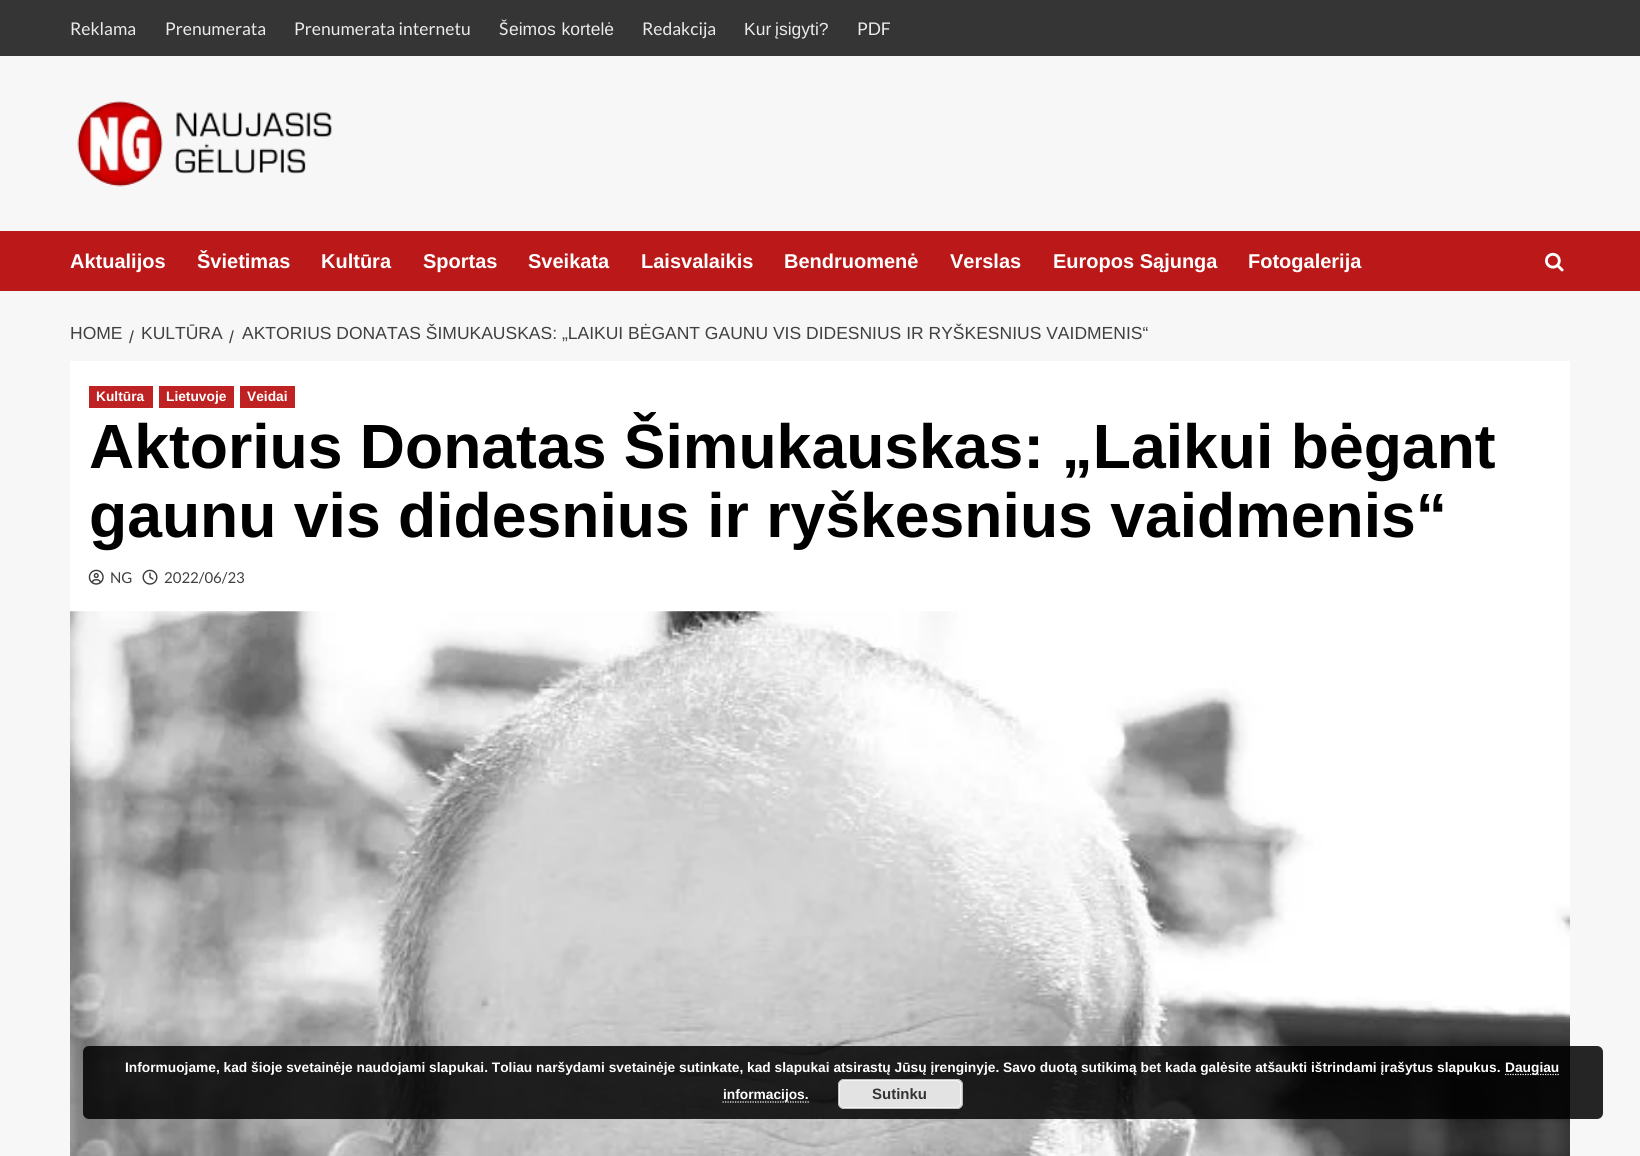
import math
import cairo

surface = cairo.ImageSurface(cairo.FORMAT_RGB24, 1640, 1156)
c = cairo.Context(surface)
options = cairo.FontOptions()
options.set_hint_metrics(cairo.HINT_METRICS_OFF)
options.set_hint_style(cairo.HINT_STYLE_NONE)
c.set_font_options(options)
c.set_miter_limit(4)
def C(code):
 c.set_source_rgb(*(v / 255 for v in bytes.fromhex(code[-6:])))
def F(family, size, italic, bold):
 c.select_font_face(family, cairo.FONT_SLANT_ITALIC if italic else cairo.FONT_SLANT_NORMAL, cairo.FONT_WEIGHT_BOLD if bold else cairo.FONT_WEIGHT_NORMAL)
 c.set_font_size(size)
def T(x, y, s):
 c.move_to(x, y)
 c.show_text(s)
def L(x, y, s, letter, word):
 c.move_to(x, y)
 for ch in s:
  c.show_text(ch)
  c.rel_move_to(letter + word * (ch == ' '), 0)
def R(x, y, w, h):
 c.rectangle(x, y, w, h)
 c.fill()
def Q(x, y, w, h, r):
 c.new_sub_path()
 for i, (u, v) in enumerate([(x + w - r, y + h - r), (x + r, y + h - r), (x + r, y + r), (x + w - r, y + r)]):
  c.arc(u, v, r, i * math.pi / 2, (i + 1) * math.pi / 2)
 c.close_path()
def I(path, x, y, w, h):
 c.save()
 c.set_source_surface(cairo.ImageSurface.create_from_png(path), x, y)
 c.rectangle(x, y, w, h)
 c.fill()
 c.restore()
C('f7f7f7')
c.paint()
C('353535')
R(0,0,1640,56)
F('Lato',17.5,0,0)
C('ebebeb')
T(70,35,'Reklama')
T(165,35,'Prenumerata')
T(294,35,'Prenumerata internetu')
T(499,35,'Š')
F('Liberation Sans',17.5,0,0)
L(509,35,'eimos kortelė',0,1)
F('Lato',17.5,0,0)
T(642,35,'Redakcija')
F('Liberation Sans',17.5,0,0)
L(744,35,'Kur įsigyti?',0,-1)
F('Lato',17.5,0,0)
T(857,35,'PDF')
I('1.png',77,101,255,86)
C('bb1919')
R(0,231,1640,60)
F('Liberation Sans',20,0,1)
C('ffffff')
T(70,268,'Aktualijos')
T(197,268,'Švietimas')
T(321,268,'Kultūra')
T(423,268,'Sportas')
T(528,268,'Sveikata')
T(641,268,'Laisvalaikis')
T(784,268,'Bendruomenė')
T(950,268,'Verslas')
T(1053,268,'Europos Sąjunga')
T(1248,268,'Fotogalerija')
I('2.png',1545,252,19,20)
F('Liberation Sans',17.5,0,0)
C('404040')
T(70,339,'HOME')
T(129,343,'/')
T(141,339,'KULTŪRA')
T(229,343,'/')
T(242,339,'AKTORIUS DONATAS ŠIMUKAUSKAS: „LAIKUI BĖGANT GAUNU VIS DIDESNIUS IR RYŠKESNIUS VAIDMENIS“')
C('ffffff')
R(70,361,1500,251)
C('be2222')
R(89,386,64,22)
F('Liberation Sans',13.75,0,1)
C('ffffff')
T(96,401,'Kultūra')
C('be2222')
R(159,386,75,22)
C('ffffff')
T(166,401,'Lietuvoje')
C('be2222')
R(240,386,55,22)
C('ffffff')
T(247,401,'Veidai')
F('Liberation Sans',62.5,0,1)
C('000000')
T(89,468,'Aktorius Donatas Šimukauskas: „Laikui bėgant')
T(89,537,'gaunu vis didesnius ir ryškesnius vaidmenis“')
I('3.png',88,569,16,16)
F('Lato',15,0,0)
C('404040')
T(110,583,'NG')
I('4.png',142,569,16,16)
T(164,583,'2022/06/23')
I('5.png',70,611,1500,545)
c.set_source_rgba(0,0,0,0.85)
Q(83,1046,1520,73,6)
c.fill()
F('Liberation Sans',13.75,0,1)
C('ffffff')
T(125,1072,'Informuojame, kad šioje svetainėje naudojami slapukai. Toliau naršydami svetainėje sutinkate, kad slapukai atsirastų Jūsų įrenginyje. Savo duotą sutikimą bet kada galėsite atšaukti ištrindami įrašytus slapukus.')
c.new_path()
c.move_to(1505,1074.5)
c.line_to(1559,1074.5)
c.set_line_width(1.2)
c.set_dash([1.25,1.25])
c.stroke()
T(1505,1072,'Daugiau')
c.new_path()
c.move_to(722.5,1102)
c.line_to(809,1102)
c.stroke()
T(723,1099,'informacijos.')
C('e3e3e3')
Q(838,1079,125,30,6)
c.fill()
Q(839.5,1080.5,121,27,4.5)
C('f6f6f6')
c.set_line_width(1)
c.set_dash([])
c.stroke()
Q(838.5,1079.5,124,29,5.5)
C('bbbbbb')
c.stroke()
F('Liberation Sans',15,0,1)
C('333333')
T(872,1099,'Sutinku')
surface.write_to_png('o.png')
